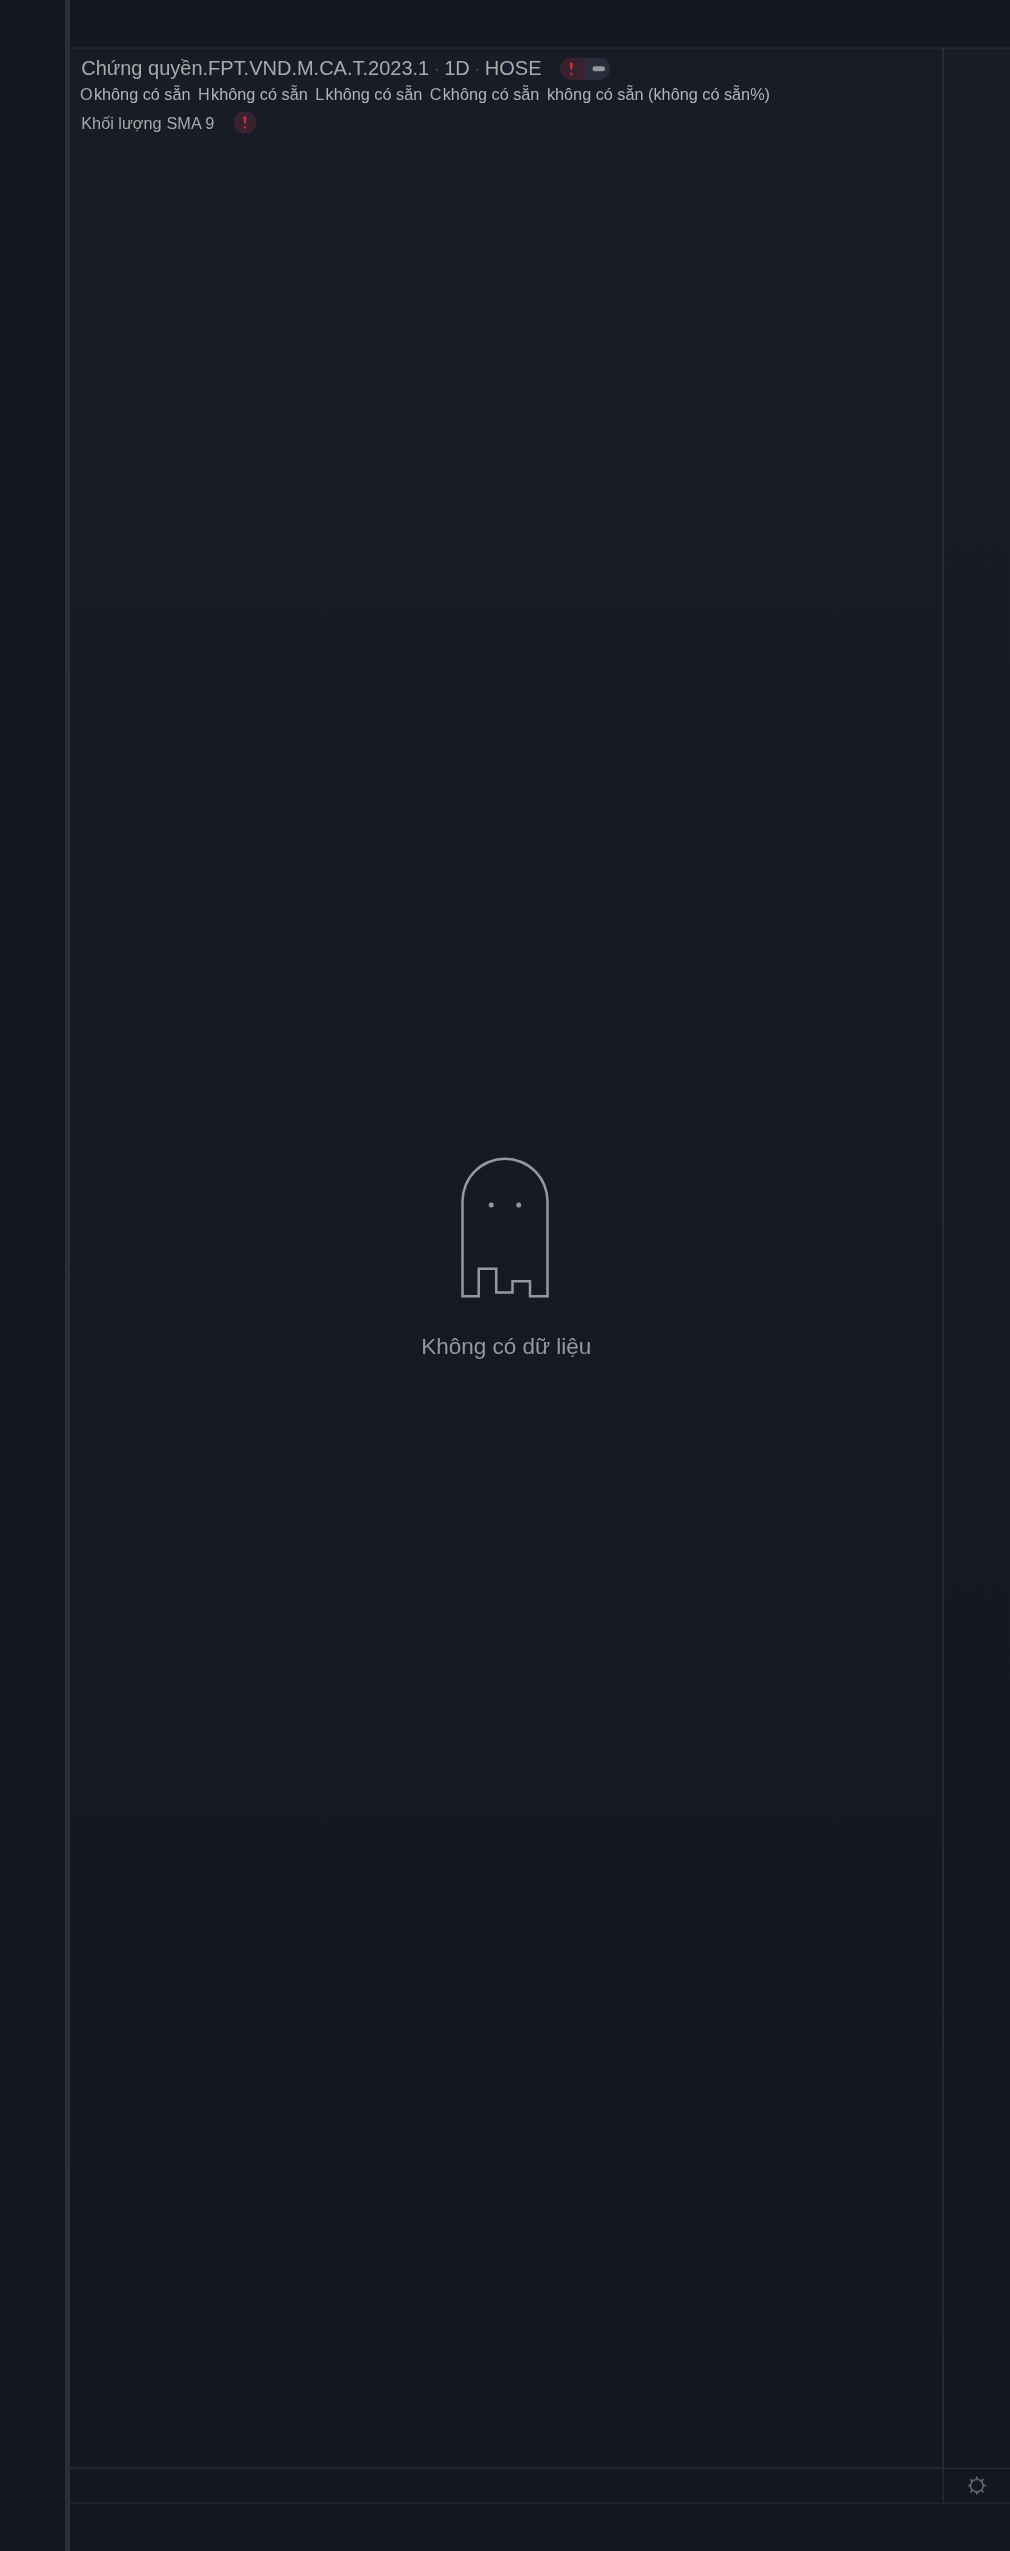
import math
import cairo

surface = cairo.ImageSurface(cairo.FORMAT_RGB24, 1010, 2551)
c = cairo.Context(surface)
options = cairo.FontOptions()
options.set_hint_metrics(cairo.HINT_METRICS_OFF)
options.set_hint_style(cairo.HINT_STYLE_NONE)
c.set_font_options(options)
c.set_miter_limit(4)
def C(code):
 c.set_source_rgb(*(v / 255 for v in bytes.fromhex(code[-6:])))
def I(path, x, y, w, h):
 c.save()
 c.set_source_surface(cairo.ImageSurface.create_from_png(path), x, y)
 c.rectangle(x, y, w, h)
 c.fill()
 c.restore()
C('ffffff')
c.paint()
I('1.png',0,0,1010,2551)
surface.write_to_png('o.png')
